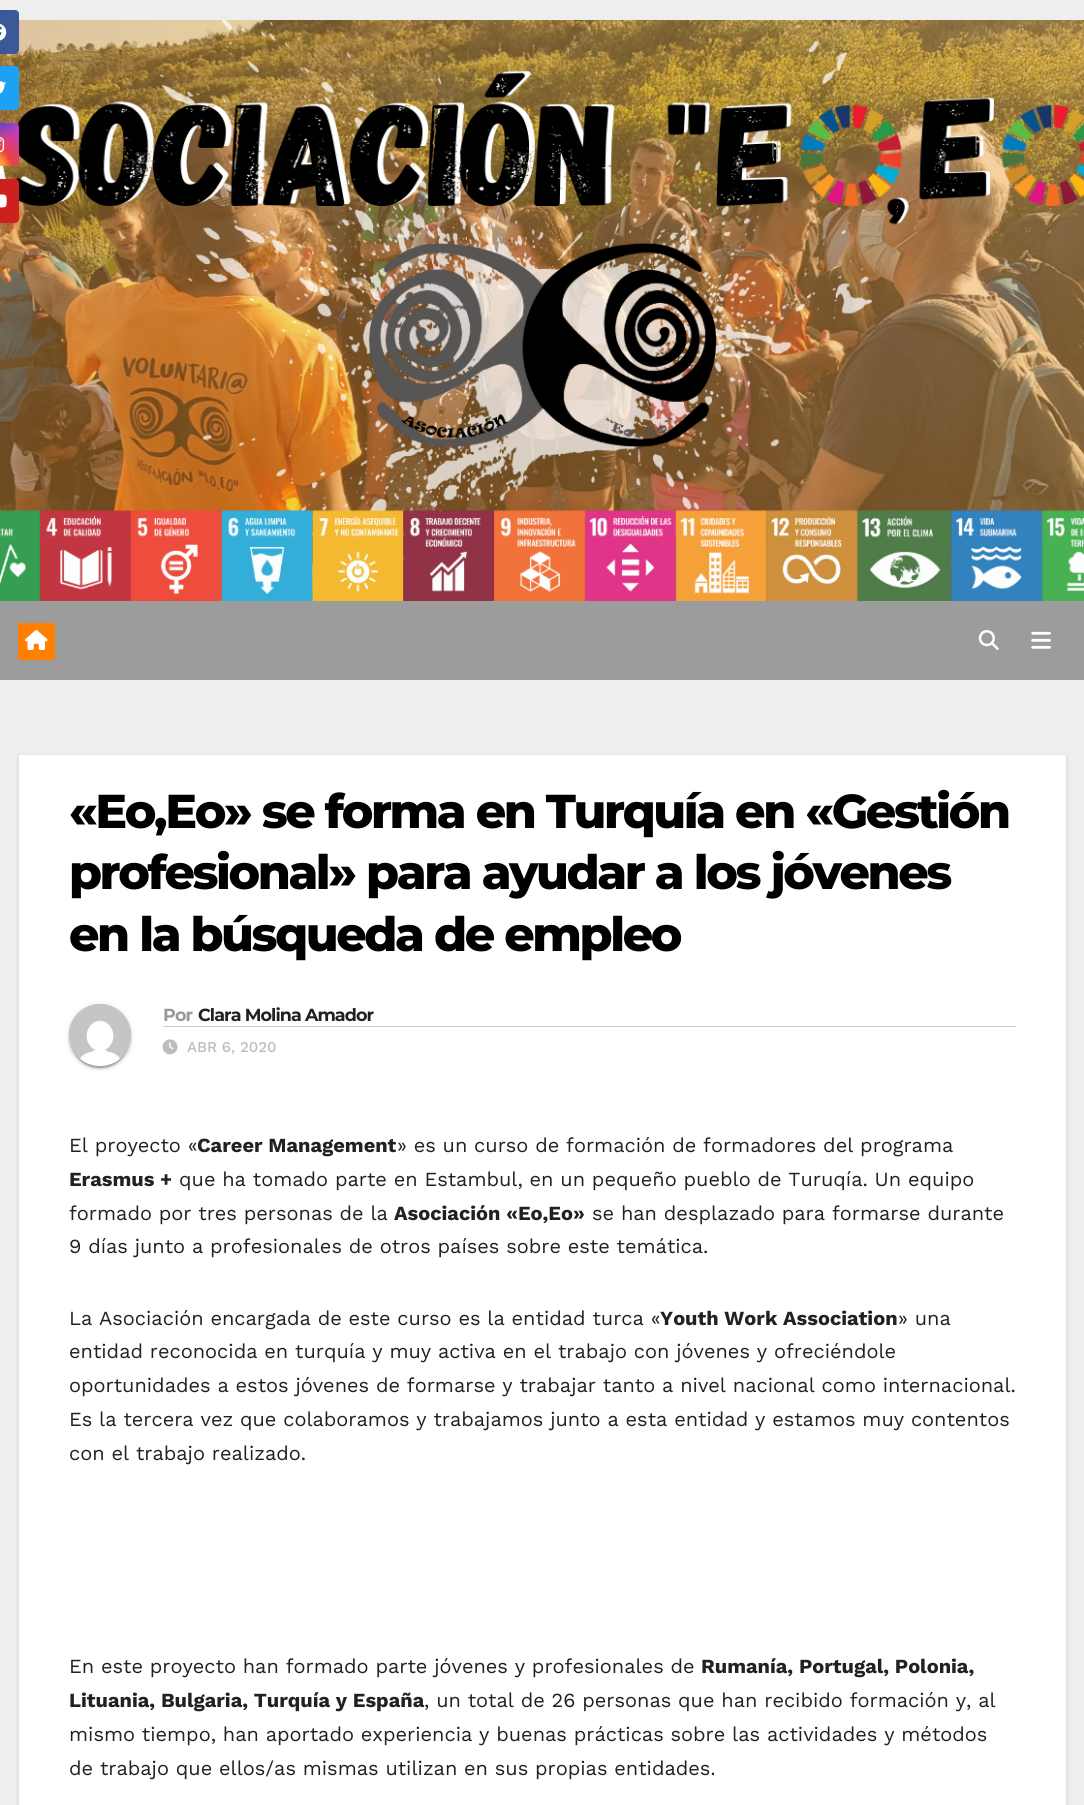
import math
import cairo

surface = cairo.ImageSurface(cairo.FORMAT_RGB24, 1084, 1805)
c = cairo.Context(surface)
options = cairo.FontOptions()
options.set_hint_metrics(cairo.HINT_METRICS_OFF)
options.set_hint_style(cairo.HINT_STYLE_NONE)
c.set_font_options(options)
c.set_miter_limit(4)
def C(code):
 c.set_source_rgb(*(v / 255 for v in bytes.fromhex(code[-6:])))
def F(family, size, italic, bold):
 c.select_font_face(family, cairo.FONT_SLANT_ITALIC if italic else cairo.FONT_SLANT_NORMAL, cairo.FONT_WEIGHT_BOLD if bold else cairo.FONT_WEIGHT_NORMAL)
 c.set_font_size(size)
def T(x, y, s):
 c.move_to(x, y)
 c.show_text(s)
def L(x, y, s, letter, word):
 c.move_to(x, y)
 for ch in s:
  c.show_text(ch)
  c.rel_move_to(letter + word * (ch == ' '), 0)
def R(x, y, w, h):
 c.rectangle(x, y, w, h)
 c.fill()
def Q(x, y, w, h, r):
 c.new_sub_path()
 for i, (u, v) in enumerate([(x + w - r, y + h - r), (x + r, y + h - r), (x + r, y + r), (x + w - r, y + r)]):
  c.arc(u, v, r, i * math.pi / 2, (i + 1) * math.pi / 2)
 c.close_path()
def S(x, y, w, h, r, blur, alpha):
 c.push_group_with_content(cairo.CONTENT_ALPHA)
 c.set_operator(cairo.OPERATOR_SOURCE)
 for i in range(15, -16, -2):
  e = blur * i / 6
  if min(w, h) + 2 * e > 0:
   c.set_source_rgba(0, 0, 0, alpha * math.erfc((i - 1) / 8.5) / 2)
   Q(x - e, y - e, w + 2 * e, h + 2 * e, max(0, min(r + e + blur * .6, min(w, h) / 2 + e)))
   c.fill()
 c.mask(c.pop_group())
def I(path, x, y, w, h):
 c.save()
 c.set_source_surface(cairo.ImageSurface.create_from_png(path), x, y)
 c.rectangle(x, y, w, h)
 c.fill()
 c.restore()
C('eeeeee')
c.paint()
I('5.png',0,20,1084,581)
C('3b5998')
Q(-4,10,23,44,4)
c.fill()
I('1.png',0,23,7,18)
C('1da1f2')
Q(-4,66,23,44,4)
c.fill()
I('2.png',0,81,7,13)
gradient = cairo.LinearGradient(-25,123,19,166)
gradient.add_color_stop_rgba(.12,0.137,0.294,0.843,1)
gradient.add_color_stop_rgba(.58,0.765,0.235,0.745,1)
c.set_source(gradient)
Q(-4,123,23,43,4)
c.fill()
gradient = cairo.RadialGradient(-11,169,0,-11,169,55)
gradient.add_color_stop_rgba(0,1,0.882,0.49,1)
gradient.add_color_stop_rgba(.1,1,0.804,0.412,1)
gradient.add_color_stop_rgba(.28,0.98,0.569,0.216,1)
gradient.add_color_stop_rgba(.42,0.922,0.255,0.255,1)
gradient.add_color_stop_rgba(.82,0.922,0.255,0.255,0)
c.set_source(gradient)
Q(-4,123,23,43,4)
c.fill()
I('3.png',0,137,5,16)
C('cd201f')
Q(-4,179,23,44,4)
c.fill()
I('4.png',0,194,7,14)
C('9c9c9c')
R(0,601,1084,79)
C('ff8000')
R(18,623,37,37)
I('6.png',25,630,23,20)
I('7.png',978,630,21,20)
I('8.png',1031,631,20,18)
C('000000')
S(19,756,1047,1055,0,2,.15)
C('ffffff')
R(19,755,1047,1050)
F('Montserrat ExtraBold',47.5,0,0)
C('000000')
L(69,828,'«Eo,Eo» se forma en Turquía en «Gestión',-2.4,0)
L(69,889,'profesional» para ayudar a los jóvenes',-2.4,0)
L(69,951,'en la búsqueda de empleo',-2.4,0)
C('000000')
S(69,1005,62,63,31,3,.12)
S(71,1010,58,58,29,.5,.2)
S(69,1006,62,63,31,1,.14)
I('9.png',69,1004,62,62)
C('cccccc')
R(163,1026,853,1)
F('Montserrat',17.5,0,1)
C('999999')
L(163,1021,'Por',-.9,0)
C('212121')
L(198,1021,'Clara Molina Amador',-.9,0)
I('10.png',162,1039,16,16)
F('Work Sans Medium',15,0,0)
C('bdbdbd')
T(187,1052,'ABR 6, 2020')
F('Work Sans',20,0,0)
C('212121')
T(69,1152,'El proyecto «')
F('Work Sans',20,0,1)
T(197,1152,'Career Management')
F('Work Sans',20,0,0)
T(397,1152,'» es un curso de formación de formadores del programa')
F('Work Sans',20,0,1)
T(69,1186,'Erasmus +')
F('Work Sans',20,0,0)
T(179,1186,'que ha tomado parte en Estambul, en un pequeño pueblo de Turuqía. Un equipo')
T(69,1220,'formado por tres personas de la')
F('Work Sans',20,0,1)
T(394,1220,'Asociación «Eo,Eo»')
F('Work Sans',20,0,0)
T(592,1220,'se han desplazado para formarse durante')
T(69,1253,'9 días junto a profesionales de otros países sobre este temática.')
T(69,1325,'La Asociación encargada de este curso es la entidad turca «')
F('Work Sans',20,0,1)
T(660,1325,'Youth Work Association')
F('Work Sans',20,0,0)
T(898,1325,'» una')
T(69,1358,'entidad reconocida en turquía y muy activa en el trabajo con jóvenes y ofreciéndole')
T(69,1392,'oportunidades a estos jóvenes de formarse y trabajar tanto a nivel nacional como internacional.')
T(69,1426,'Es la tercera vez que colaboramos y trabajamos junto a esta entidad y estamos muy contentos')
T(69,1460,'con el trabajo realizado.')
T(69,1673,'En este proyecto han formado parte jóvenes y profesionales de')
F('Work Sans',20,0,1)
T(701,1673,'Rumanía, Portugal, Polonia,')
T(69,1707,'Lituania, Bulgaria, Turquía y España')
F('Work Sans',20,0,0)
T(424,1707,', un total de 26 personas que han recibido formación y, al')
T(69,1741,'mismo tiempo, han aportado experiencia y buenas prácticas sobre las actividades y métodos')
T(69,1775,'de trabajo que ellos/as mismas utilizan en sus propias entidades.')
surface.write_to_png('o.png')
